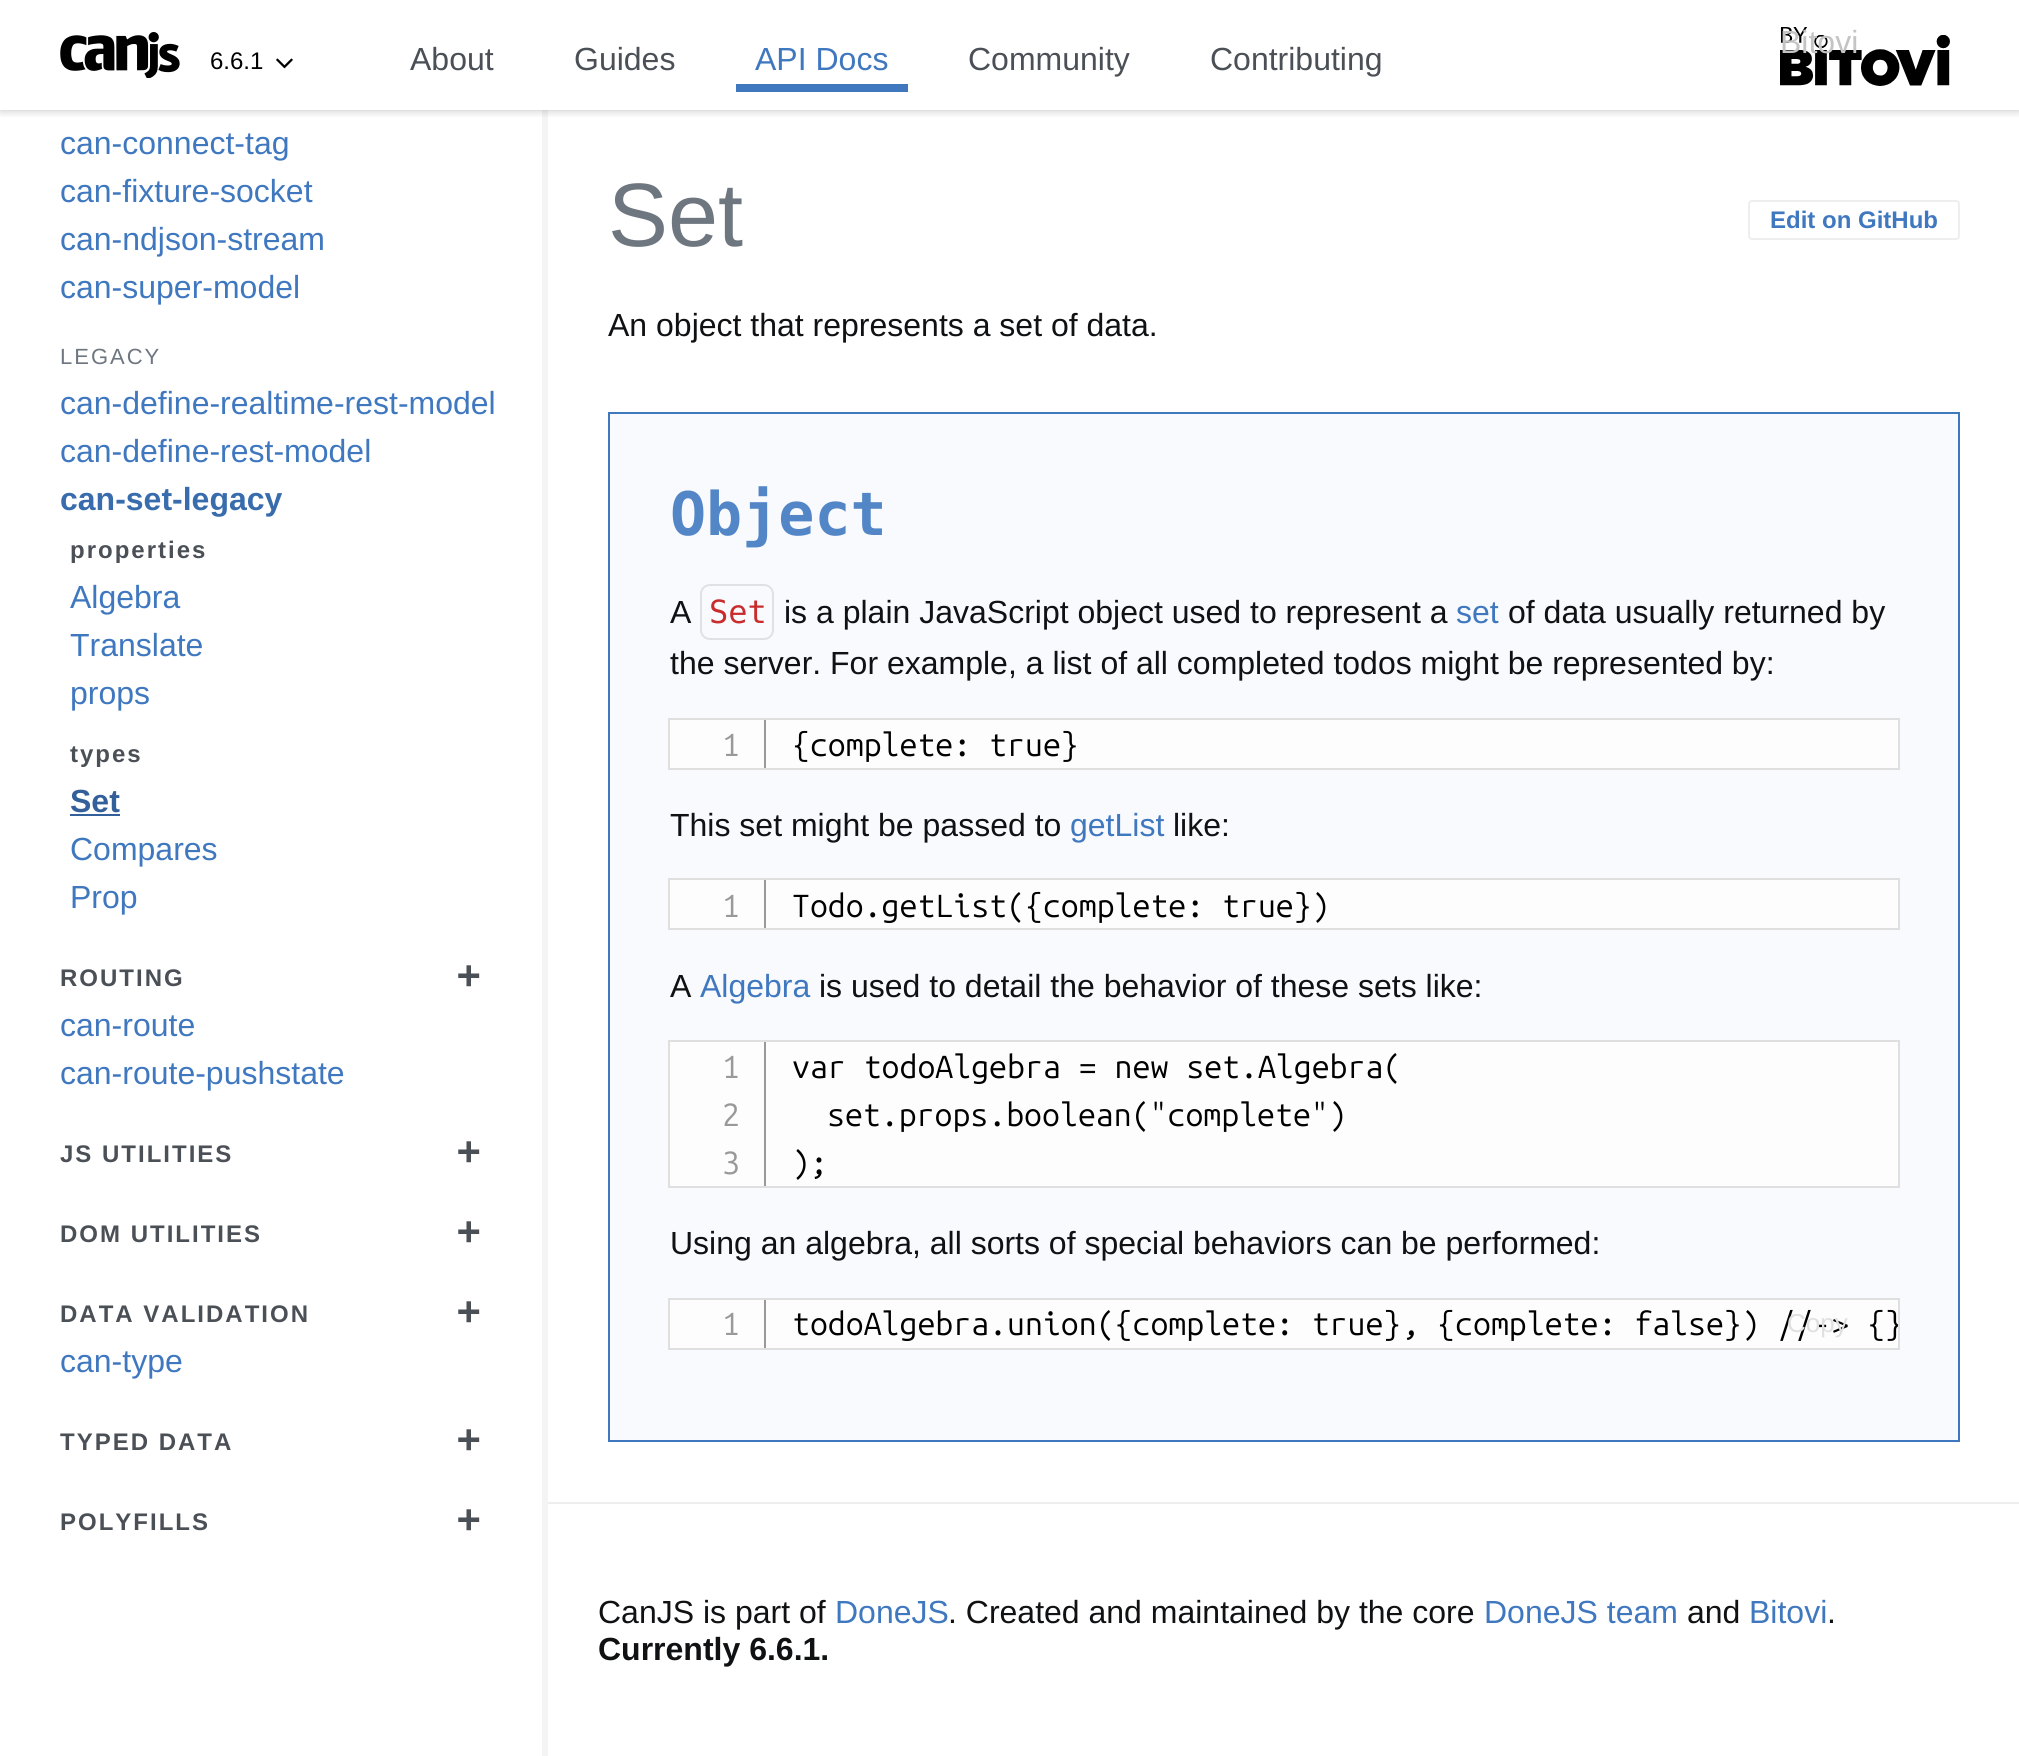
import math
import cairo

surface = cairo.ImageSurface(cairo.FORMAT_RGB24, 2019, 1756)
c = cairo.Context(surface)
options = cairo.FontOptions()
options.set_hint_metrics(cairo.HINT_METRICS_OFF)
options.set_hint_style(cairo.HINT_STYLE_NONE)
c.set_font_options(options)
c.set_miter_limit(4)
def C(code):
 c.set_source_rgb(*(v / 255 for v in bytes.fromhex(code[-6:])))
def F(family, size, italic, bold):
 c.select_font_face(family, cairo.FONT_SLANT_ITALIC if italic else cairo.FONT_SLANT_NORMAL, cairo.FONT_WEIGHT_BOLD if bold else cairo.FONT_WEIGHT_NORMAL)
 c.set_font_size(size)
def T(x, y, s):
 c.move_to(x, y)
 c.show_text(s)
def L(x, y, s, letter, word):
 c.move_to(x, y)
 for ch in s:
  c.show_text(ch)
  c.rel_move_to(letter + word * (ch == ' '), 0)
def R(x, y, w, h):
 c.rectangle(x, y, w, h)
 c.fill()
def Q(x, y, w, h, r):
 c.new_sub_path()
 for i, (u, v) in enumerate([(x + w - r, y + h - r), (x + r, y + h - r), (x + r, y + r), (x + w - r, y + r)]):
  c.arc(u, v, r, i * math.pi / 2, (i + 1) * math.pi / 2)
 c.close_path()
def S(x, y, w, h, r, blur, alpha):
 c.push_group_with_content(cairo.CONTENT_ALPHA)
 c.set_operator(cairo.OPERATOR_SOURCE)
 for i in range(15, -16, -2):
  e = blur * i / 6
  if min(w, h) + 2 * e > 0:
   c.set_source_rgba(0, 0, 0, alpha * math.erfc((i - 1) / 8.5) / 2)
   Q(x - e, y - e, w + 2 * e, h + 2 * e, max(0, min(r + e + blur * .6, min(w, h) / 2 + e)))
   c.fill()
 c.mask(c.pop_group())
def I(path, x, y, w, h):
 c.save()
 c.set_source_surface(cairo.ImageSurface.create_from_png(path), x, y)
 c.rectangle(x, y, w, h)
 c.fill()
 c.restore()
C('ffffff')
c.paint()
C('f4f4f4')
R(542,110,6,1646)
c.save()
c.rectangle(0,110,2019,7)
c.clip()
C('000000')
S(0,0,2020,110,0,5,.25)
c.restore()
I('1.png',1780,27,170,59)
F('Liberation Sans',32,0,0)
C('c4c4c4')
T(1780,53,'Bitovi')
I('2.png',60,32,120,46)
F('Liberation Sans',24,0,0)
C('000000')
T(210,69,'6.6.1')
I('3.png',276,58,17,11)
F('Liberation Sans',32,0,0)
C('4b5057')
T(410,70,'About')
T(574,70,'Guides')
C('4078c0')
T(755,70,'API Docs')
R(736,84,172,8)
C('4b5057')
T(968,70,'Community')
T(1210,70,'Contributing')
C('4078c0')
T(60,154,'can-connect-tag')
T(60,202,'can-fixture-socket')
T(60,250,'can-ndjson-stream')
T(60,298,'can-super-model')
F('Liberation Sans',22,0,0)
C('6e7680')
L(60,364,'LEGACY',2,0)
F('Liberation Sans',32,0,0)
C('4078c0')
T(60,414,'can-define-realtime-rest-model')
T(60,462,'can-define-rest-model')
F('Liberation Sans',32,0,1)
C('396cad')
T(60,510,'can-set-legacy')
F('Liberation Sans',24,0,1)
C('4b5057')
L(70,558,'properties',2,0)
F('Liberation Sans',32,0,0)
C('4078c0')
T(70,608,'Algebra')
T(70,656,'Translate')
T(70,704,'props')
F('Liberation Sans',24,0,1)
C('4b5057')
L(70,762,'types',2,0)
F('Liberation Sans',32,0,1)
C('33609a')
T(70,812,'Set')
R(70,814,50,2)
F('Liberation Sans',32,0,0)
C('4078c0')
T(70,860,'Compares')
T(70,908,'Prop')
F('Liberation Sans',24,0,1)
C('4b5057')
L(60,986,'ROUTING',2,0)
F('DejaVu Sans Mono',39,0,1)
L(457,988,'+',2,0)
F('Liberation Sans',32,0,0)
C('4078c0')
T(60,1036,'can-route')
T(60,1084,'can-route-pushstate')
F('Liberation Sans',24,0,1)
C('4b5057')
L(60,1162,'JS UTILITIES',2,0)
F('DejaVu Sans Mono',39,0,1)
L(457,1164,'+',2,0)
F('Liberation Sans',24,0,1)
L(60,1242,'DOM UTILITIES',2,0)
F('DejaVu Sans Mono',39,0,1)
L(457,1244,'+',2,0)
F('Liberation Sans',24,0,1)
L(60,1322,'DATA VALIDATION',2,0)
F('DejaVu Sans Mono',39,0,1)
L(457,1324,'+',2,0)
F('Liberation Sans',32,0,0)
C('4078c0')
T(60,1372,'can-type')
F('Liberation Sans',24,0,1)
C('4b5057')
L(60,1450,'TYPED DATA',2,0)
F('DejaVu Sans Mono',39,0,1)
L(457,1452,'+',2,0)
F('Liberation Sans',24,0,1)
L(60,1530,'POLYFILLS',2,0)
F('DejaVu Sans Mono',39,0,1)
L(457,1532,'+',2,0)
F('Liberation Sans',90,0,0)
C('6e7680')
T(608,246,'Set')
Q(1749,201,210,38,3)
C('eeeeee')
c.stroke()
F('Liberation Sans',24,0,1)
C('4078c0')
T(1770,228,'Edit on GitHub')
F('Liberation Sans',32,0,0)
C('101113')
T(608,336,'An object that represents a set of data.')
C('f8fafd')
c.rectangle(609,413,1350,1028)
c.fill_preserve()
C('4078c0')
c.stroke()
F('DejaVu Sans Mono',60,0,1)
C('5386c6')
T(670,535,'Object')
F('Liberation Sans',32,0,0)
C('101113')
T(670,623,'A')
Q(701,585,72,54,9)
C('dfe1e4')
c.stroke()
F('DejaVu Sans Mono',32,0,0)
C('c92c2c')
T(709,623,'Set')
F('Liberation Sans',32,0,0)
C('101113')
T(784,623,'is a plain JavaScript object used to represent a')
C('4078c0')
T(1456,623,'set')
C('101113')
T(1508,623,'of data usually returned by')
T(670,674,'the server. For example, a list of all completed todos might be represented by:')
C('fdfdfd')
c.rectangle(669,719,1230,50)
c.fill_preserve()
C('dfdfdf')
c.stroke()
C('999999')
R(764,720,2,48)
F('Ubuntu Mono',32,0,0)
L(722,756,'1',-2,0)
C('000000')
T(792,756,'{complete: true}')
F('Liberation Sans',32,0,0)
C('101113')
T(670,836,'This set might be passed to')
C('4078c0')
T(1070,836,'getList')
C('101113')
T(1173,836,'like:')
C('fdfdfd')
c.rectangle(669,879,1230,50)
c.fill_preserve()
C('dfdfdf')
c.stroke()
C('999999')
R(764,880,2,48)
F('Ubuntu Mono',32,0,0)
L(722,917,'1',-2,0)
C('000000')
T(792,917,'Todo.getList({complete: true})')
F('Liberation Sans',32,0,0)
C('101113')
T(670,997,'A')
C('4078c0')
T(700,997,'Algebra')
C('101113')
T(819,997,'is used to detail the behavior of these sets like:')
C('fdfdfd')
c.rectangle(669,1041,1230,146)
c.fill_preserve()
C('dfdfdf')
c.stroke()
C('999999')
R(764,1042,2,144)
F('Ubuntu Mono',32,0,0)
L(722,1078,'1',-2,0)
L(722,1126,'2',-2,0)
L(722,1174,'3',-2,0)
C('000000')
T(792,1078,'var todoAlgebra = new set.Algebra(')
T(827,1126,'set.props.boolean("complete")')
T(792,1174,');')
F('Liberation Sans',32,0,0)
C('101113')
T(670,1254,'Using an algebra, all sorts of special behaviors can be performed:')
C('fdfdfd')
c.rectangle(669,1299,1230,50)
c.fill_preserve()
C('dfdfdf')
c.stroke()
C('999999')
R(764,1300,2,48)
F('Ubuntu Mono',32,0,0)
L(722,1335,'1',-2,0)
c.save()
c.rectangle(670,1300,1228,48)
c.clip()
C('000000')
T(792,1335,'todoAlgebra.union({complete: true}, {complete: false}) //-> {}')
c.restore()
F('Liberation Sans',26,0,0)
C('e0e0e0')
T(1787,1332,'Copy')
C('eeeeee')
R(548,1502,1471,2)
F('Liberation Sans',32,0,0)
C('101113')
T(598,1623,'CanJS is part of')
C('4078c0')
T(835,1623,'DoneJS')
C('101113')
T(948,1623,'. Created and maintained by the core')
C('4078c0')
T(1484,1623,'DoneJS team')
C('101113')
T(1687,1623,'and')
C('4078c0')
T(1749,1623,'Bitovi')
C('101113')
T(1827,1623,'.')
F('Liberation Sans',32,0,1)
T(598,1660,'Currently 6.6.1.')
surface.write_to_png('o.png')
